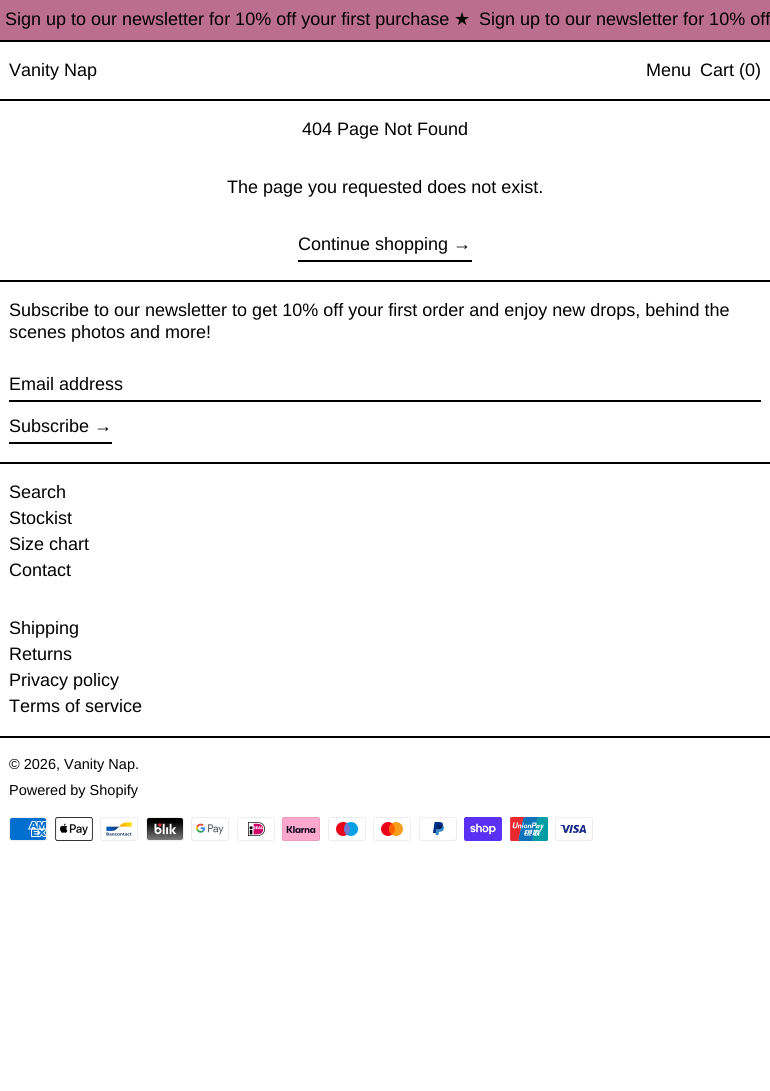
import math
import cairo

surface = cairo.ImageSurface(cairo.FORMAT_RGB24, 770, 1091)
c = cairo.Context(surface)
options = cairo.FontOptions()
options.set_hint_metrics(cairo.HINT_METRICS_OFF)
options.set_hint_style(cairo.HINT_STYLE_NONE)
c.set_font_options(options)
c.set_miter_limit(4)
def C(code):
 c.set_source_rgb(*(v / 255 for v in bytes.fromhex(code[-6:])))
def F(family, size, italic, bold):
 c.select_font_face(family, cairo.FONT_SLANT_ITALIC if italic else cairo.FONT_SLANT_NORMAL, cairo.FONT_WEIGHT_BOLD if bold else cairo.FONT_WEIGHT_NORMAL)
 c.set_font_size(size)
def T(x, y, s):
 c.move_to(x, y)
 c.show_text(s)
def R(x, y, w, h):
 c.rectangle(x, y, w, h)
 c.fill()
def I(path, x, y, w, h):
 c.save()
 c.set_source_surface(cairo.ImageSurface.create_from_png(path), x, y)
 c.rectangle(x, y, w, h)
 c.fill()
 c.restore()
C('ffffff')
c.paint()
C('bb6e8d')
R(0,0,770,40)
C('000000')
R(0,40,770,2)
F('Liberation Sans',18,0,0)
T(5,25,'Sign up to our newsletter for 10% off your first purchase')
F('DejaVu Sans',18,0,0)
T(454,25,'★')
F('Liberation Sans',18,0,0)
T(479,25,'Sign up to our newsletter for 10% off')
R(0,99,770,2)
T(9,76,'Vanity Nap')
T(646,76,'Menu')
T(700,76,'Cart (0)')
R(0,280,770,2)
T(302,135,'404 Page Not Found')
T(227,193,'The page you requested does not exist.')
R(298,260,174,2)
T(298,250,'Continue shopping →')
R(0,462,770,2)
T(9,316,'Subscribe to our newsletter to get 10% off your first order and enjoy new drops, behind the')
T(9,338,'scenes photos and more!')
R(9,400,752,2)
T(9,390,'Email address')
R(9,442,103,2)
T(9,432,'Subscribe →')
R(0,736,770,2)
T(9,498,'Search')
T(9,524,'Stockist')
T(9,550,'Size chart')
T(9,576,'Contact')
T(9,634,'Shipping')
T(9,660,'Returns')
T(9,686,'Privacy policy')
T(9,712,'Terms of service')
F('Liberation Sans',14.5,0,0)
T(9,769,'© 2026, Vanity Nap.')
T(9,795,'Powered by Shopify')
I('1.png',9,817,38,24)
I('2.png',55,817,38,24)
I('3.png',100,817,38,24)
I('4.png',146,817,38,24)
I('5.png',191,817,38,24)
I('6.png',237,817,38,24)
I('7.png',282,817,38,24)
I('8.png',328,817,38,24)
I('9.png',373,817,38,24)
I('10.png',419,817,38,24)
I('11.png',464,817,38,24)
I('12.png',510,817,38,24)
I('13.png',555,817,38,24)
surface.write_to_png('o.png')
